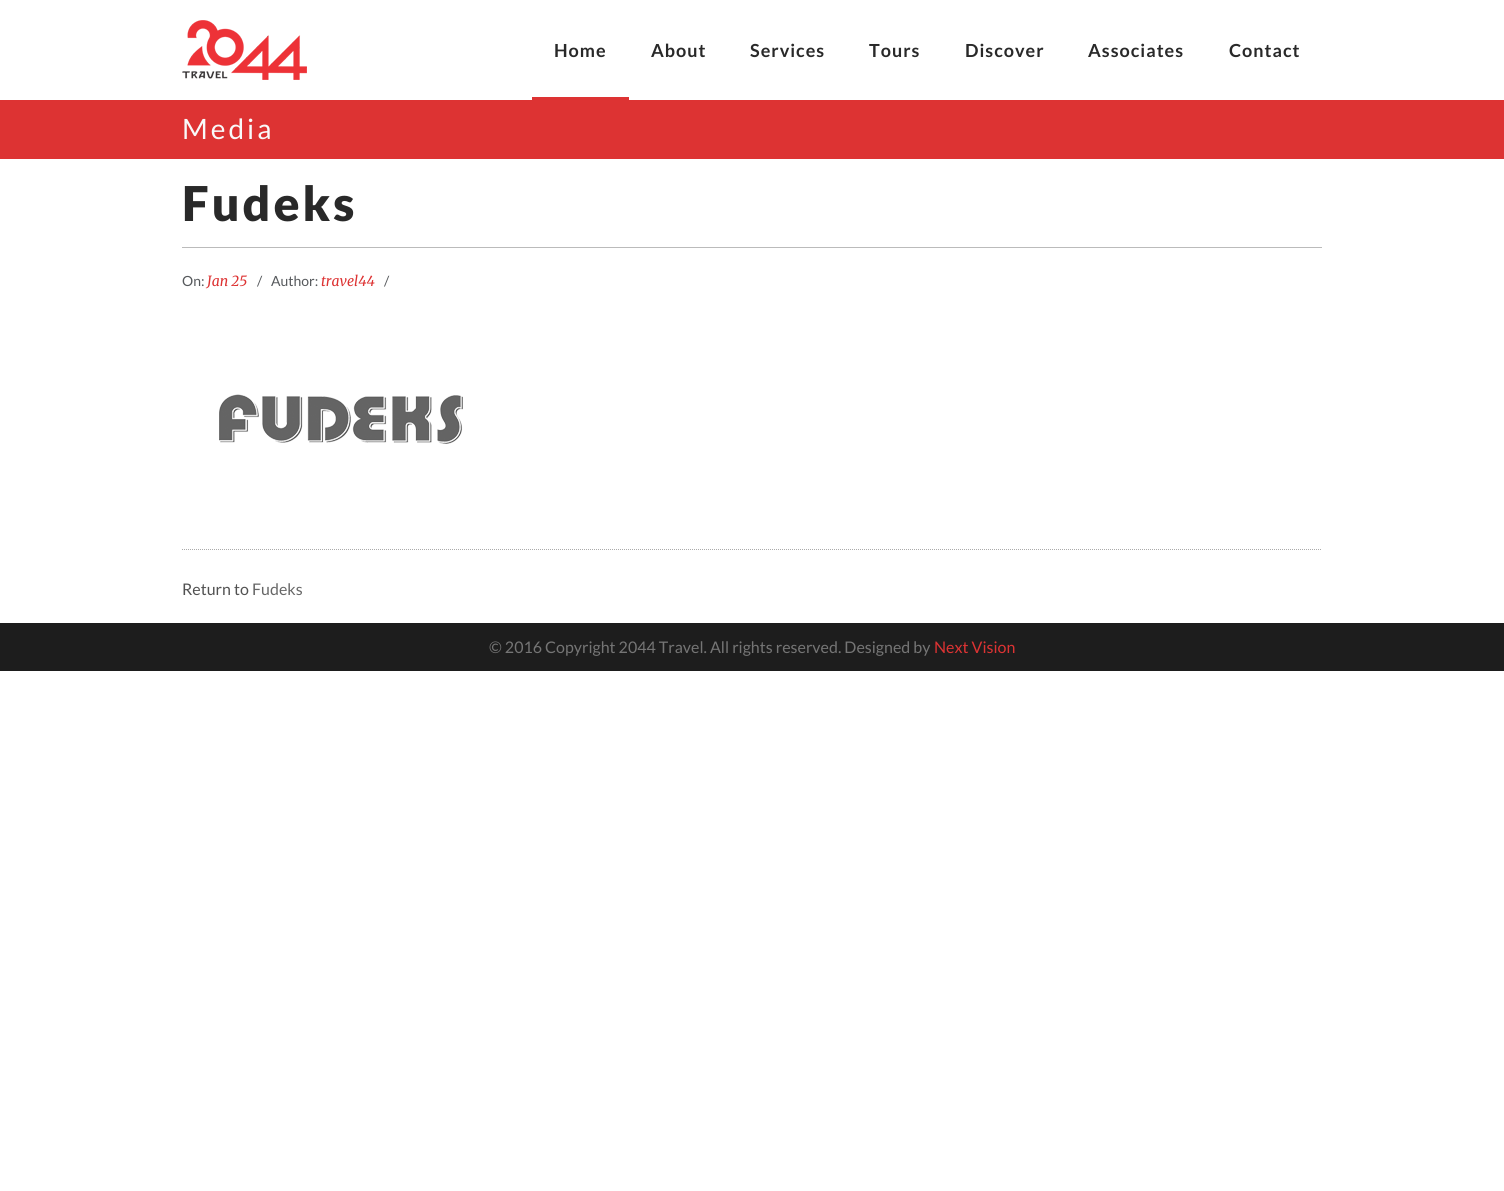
import math
import cairo

surface = cairo.ImageSurface(cairo.FORMAT_RGB24, 1504, 1191)
c = cairo.Context(surface)
options = cairo.FontOptions()
options.set_hint_metrics(cairo.HINT_METRICS_OFF)
options.set_hint_style(cairo.HINT_STYLE_NONE)
c.set_font_options(options)
c.set_miter_limit(4)
def C(code):
 c.set_source_rgb(*(v / 255 for v in bytes.fromhex(code[-6:])))
def F(family, size, italic, bold):
 c.select_font_face(family, cairo.FONT_SLANT_ITALIC if italic else cairo.FONT_SLANT_NORMAL, cairo.FONT_WEIGHT_BOLD if bold else cairo.FONT_WEIGHT_NORMAL)
 c.set_font_size(size)
def T(x, y, s):
 c.move_to(x, y)
 c.show_text(s)
def L(x, y, s, letter, word):
 c.move_to(x, y)
 for ch in s:
  c.show_text(ch)
  c.rel_move_to(letter + word * (ch == ' '), 0)
def R(x, y, w, h):
 c.rectangle(x, y, w, h)
 c.fill()
def I(path, x, y, w, h):
 c.save()
 c.set_source_surface(cairo.ImageSurface.create_from_png(path), x, y)
 c.rectangle(x, y, w, h)
 c.fill()
 c.restore()
C('ffffff')
c.paint()
I('1.png',182,20,125,60)
F('Lato',18,0,1)
C('292929')
L(554,57,'Home',1,0)
L(651,57,'About',1,0)
L(750,57,'Services',1,0)
L(869,57,'Tours',1,0)
L(965,57,'Discover',1,0)
L(1088,57,'Associates',1,0)
L(1229,57,'Contact',1,0)
C('dd3333')
R(532,97,97,3)
R(0,100,1504,59)
F('Lato',28,0,0)
C('f9f9f9')
L(182,139,'Media',3,0)
F('Lato Black',48,0,0)
C('292929')
L(182,221,'Fudeks',3,0)
C('bbbbbb')
R(182,247,1140,1)
F('Lato',14,0,0)
C('56595c')
T(182,286,'On:')
F('Merriweather',14,1,0)
C('dd3333')
T(207,286,'Jan 25')
F('Lato',14,0,0)
C('56595c')
T(257,286,'/')
T(271,286,'Author:')
F('Merriweather',14,1,0)
C('dd3333')
T(321,286,'travel44')
F('Lato',14,0,0)
C('56595c')
T(384,286,'/')
I('2.png',219,394,244,50)
c.new_path()
c.move_to(182,549.5)
c.line_to(1322,549.5)
C('aaaaaa')
c.set_line_width(1)
c.set_dash([1,1])
c.stroke()
F('Lato',16,0,0)
C('515151')
T(182,595,'Return to')
C('666666')
T(252,595,'Fudeks')
C('1d1d1d')
R(0,623,1504,48)
C('757575')
T(489,653,'© 2016 Copyright 2044 Travel. All rights reserved. Designed by')
C('dd3333')
T(934,653,'Next Vision')
surface.write_to_png('o.png')
